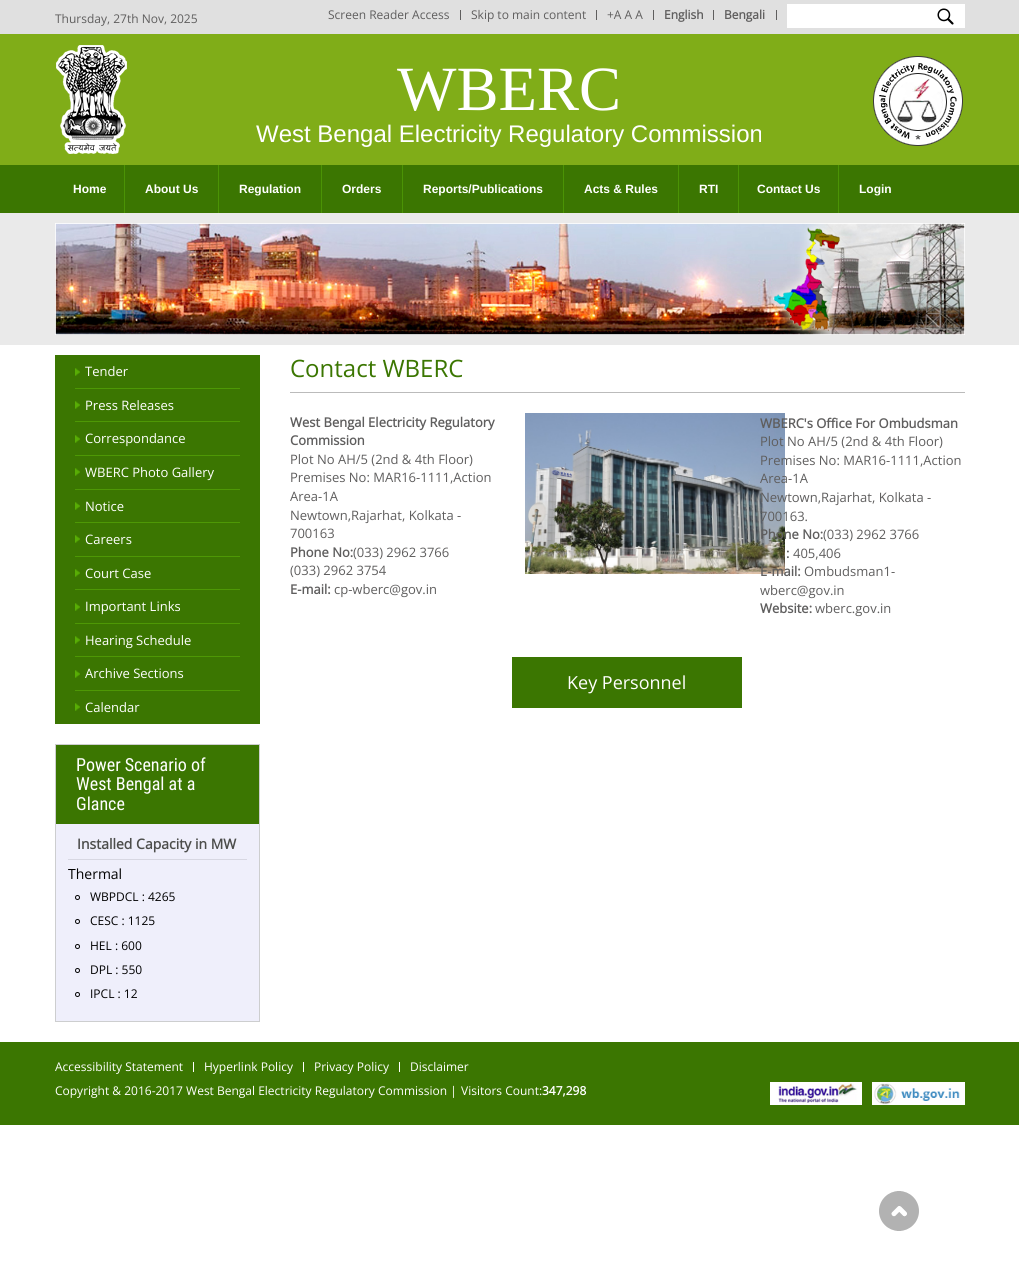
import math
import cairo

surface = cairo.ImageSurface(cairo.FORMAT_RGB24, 1019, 1281)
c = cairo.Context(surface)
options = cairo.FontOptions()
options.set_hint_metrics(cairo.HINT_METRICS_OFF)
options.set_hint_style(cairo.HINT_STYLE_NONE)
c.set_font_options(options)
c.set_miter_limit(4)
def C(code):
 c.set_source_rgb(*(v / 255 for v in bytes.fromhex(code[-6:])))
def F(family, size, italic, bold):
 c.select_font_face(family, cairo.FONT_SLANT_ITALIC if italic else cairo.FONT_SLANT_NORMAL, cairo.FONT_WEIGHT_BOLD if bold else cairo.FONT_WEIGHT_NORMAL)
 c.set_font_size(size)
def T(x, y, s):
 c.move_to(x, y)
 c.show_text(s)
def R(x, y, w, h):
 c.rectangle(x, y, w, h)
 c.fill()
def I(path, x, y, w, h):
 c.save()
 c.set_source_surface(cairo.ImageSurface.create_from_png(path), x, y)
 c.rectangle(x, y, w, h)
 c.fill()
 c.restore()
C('ffffff')
c.paint()
C('e0e0e0')
R(0,0,1019,34)
F('Open Sans',12,0,0)
C('5f5e5e')
T(55,23,'Thursday, 27th Nov, 2025')
R(460,10,1,10)
T(328,19,'Screen Reader Access')
R(596,10,1,10)
T(471,19,'Skip to main content')
R(653,10,1,10)
T(607,19,'+A A A')
R(776,10,1,10)
R(713,10,1,10)
F('Open Sans',12,0,1)
T(664,19,'English')
T(724,19,'Bengali')
C('ffffff')
R(787,4,178,24)
I('1.png',937,8,17,17)
C('80ad18')
R(0,34,1019,131)
I('2.png',56,45,71,109)
F('Liberation Serif',63,0,0)
C('ffffff')
T(397,110,'WBERC')
F('Liberation Sans',24,0,0)
T(256,142,'West Bengal Electricity Regulatory Commission')
I('3.png',873,56,90,90)
C('3b7601')
R(0,165,1019,48)
C('4b9305')
R(124,165,1,48)
F('Liberation Sans',12,0,1)
C('ffffff')
T(73,193,'Home')
C('4b9305')
R(218,165,1,48)
C('ffffff')
T(145,193,'About Us')
C('4b9305')
R(321,165,1,48)
C('ffffff')
T(239,193,'Regulation')
C('4b9305')
R(402,165,1,48)
C('ffffff')
T(342,193,'Orders')
C('4b9305')
R(563,165,1,48)
C('ffffff')
T(423,193,'Reports/Publications')
C('4b9305')
R(678,165,1,48)
C('ffffff')
T(584,193,'Acts & Rules')
C('4b9305')
R(738,165,1,48)
C('ffffff')
T(699,193,'RTI')
C('4b9305')
R(838,165,1,48)
C('ffffff')
T(757,193,'Contact Us')
T(859,193,'Login')
C('eaeaea')
R(0,213,1019,132)
I('4.png',55,223,910,112)
C('3b7601')
R(55,355,205,369)
I('5.png',75,368,5,8)
C('4e9805')
R(75,388,165,1)
F('Open Sans',13,0,0)
C('ffffff')
T(85,376,'Tender')
I('5.png',75,401,5,8)
C('4e9805')
R(75,421,165,1)
C('ffffff')
T(85,410,'Press Releases')
I('5.png',75,435,5,8)
C('4e9805')
R(75,455,165,1)
C('ffffff')
T(85,443,'Correspondance')
I('5.png',75,468,5,8)
C('4e9805')
R(75,489,165,1)
C('ffffff')
T(85,477,'WBERC Photo Gallery')
I('5.png',75,502,5,8)
C('4e9805')
R(75,522,165,1)
C('ffffff')
T(85,511,'Notice')
I('5.png',75,535,5,8)
C('4e9805')
R(75,556,165,1)
C('ffffff')
T(85,544,'Careers')
I('5.png',75,569,5,8)
C('4e9805')
R(75,589,165,1)
C('ffffff')
T(85,578,'Court Case')
I('5.png',75,603,5,8)
C('4e9805')
R(75,623,165,1)
C('ffffff')
T(85,611,'Important Links')
I('5.png',75,636,5,8)
C('4e9805')
R(75,656,165,1)
C('ffffff')
T(85,645,'Hearing Schedule')
I('5.png',75,670,5,8)
C('4e9805')
R(75,690,165,1)
C('ffffff')
T(85,678,'Archive Sections')
I('5.png',75,703,5,8)
T(85,712,'Calendar')
C('efeffb')
R(56,824,203,197)
c.rectangle(55.5,744.5,204,277)
C('cdcecf')
c.set_line_width(1)
c.stroke()
C('3b7601')
R(56,745,203,79)
F('Roboto Condensed',18,0,0)
C('ffffff')
T(76,771,'Power Scenario of')
T(76,790,'West Bengal at a')
T(76,810,'Glance')
C('d7d7e2')
R(68,859,179,1)
F('Open Sans',14,0,1)
C('4c4d4b')
T(77,849,'Installed Capacity in MW')
F('Open Sans',14,0,0)
C('000000')
T(68,879,'Thermal')
c.new_path()
c.arc(77.5,897.5,2,0,2 * math.pi)
c.stroke()
F('Open Sans',12,0,0)
T(90,901,'WBPDCL : 4265')
c.new_path()
c.arc(77.5,921.5,2,0,2 * math.pi)
c.stroke()
T(90,925,'CESC : 1125')
c.new_path()
c.arc(77.5,946.5,2,0,2 * math.pi)
c.stroke()
T(90,950,'HEL : 600')
c.new_path()
c.arc(77.5,970.5,2,0,2 * math.pi)
c.stroke()
T(90,974,'DPL : 550')
c.new_path()
c.arc(77.5,994.5,2,0,2 * math.pi)
c.stroke()
T(90,998,'IPCL : 12')
C('bbbbbb')
R(290,392,675,1)
F('Open Sans',24,0,0)
C('3b7601')
T(290,377,'Contact WBERC')
F('Open Sans',13,0,1)
C('5f5e5e')
T(290,427,'West Bengal Electricity Regulatory')
T(290,445,'Commission')
F('Open Sans',13,0,0)
T(290,464,'Plot No AH/5 (2nd & 4th Floor)')
T(290,482,'Premises No: MAR16-1111,Action')
T(290,501,'Area-1A')
T(290,520,'Newtown,Rajarhat, Kolkata -')
T(290,538,'700163')
F('Open Sans',13,0,1)
T(290,557,'Phone No:')
F('Open Sans',13,0,0)
T(353,557,'(033) 2962 3766')
T(290,575,'(033) 2962 3754')
F('Open Sans',13,0,1)
T(290,594,'E-mail:')
F('Open Sans',13,0,0)
T(334,594,'cp-wberc@gov.in')
I('6.png',525,413,260,161)
F('Open Sans',13,0,1)
T(760,428,'WBERC\'s Office For Ombudsman')
F('Open Sans',13,0,0)
T(760,446,'Plot No AH/5 (2nd & 4th Floor)')
T(760,465,'Premises No: MAR16-1111,Action')
T(760,483,'Area-1A')
T(760,502,'Newtown,Rajarhat, Kolkata -')
T(760,521,'700163.')
F('Open Sans',13,0,1)
T(760,539,'Phone No:')
F('Open Sans',13,0,0)
T(823,539,'(033) 2962 3766')
F('Open Sans',13,0,1)
T(786,558,':')
F('Open Sans',13,0,0)
T(793,558,'405,406')
F('Open Sans',13,0,1)
T(760,576,'E-mail:')
F('Open Sans',13,0,0)
T(804,576,'Ombudsman1-')
T(760,595,'wberc@gov.in')
F('Open Sans',13,0,1)
T(760,613,'Website:')
F('Open Sans',13,0,0)
T(815,613,'wberc.gov.in')
C('3b7601')
R(512,657,230,51)
F('Open Sans',18,0,0)
C('ffffff')
T(567,689,'Key Personnel')
C('3b7601')
R(0,1042,1019,83)
C('ffffff')
R(193,1062,1,10)
F('Open Sans',12,0,0)
T(55,1071,'Accessibility Statement')
R(303,1062,1,10)
T(204,1071,'Hyperlink Policy')
R(399,1062,1,10)
T(314,1071,'Privacy Policy')
T(410,1071,'Disclaimer')
T(55,1095,'Copyright & 2016-2017 West Bengal Electricity Regulatory Commission |')
T(461,1095,'Visitors Count:')
F('Open Sans',12,0,1)
T(542,1095,'347,298')
I('7.png',770,1082,92,23)
I('8.png',872,1082,93,23)
I('9.png',879,1191,40,40)
surface.write_to_png('o.png')
